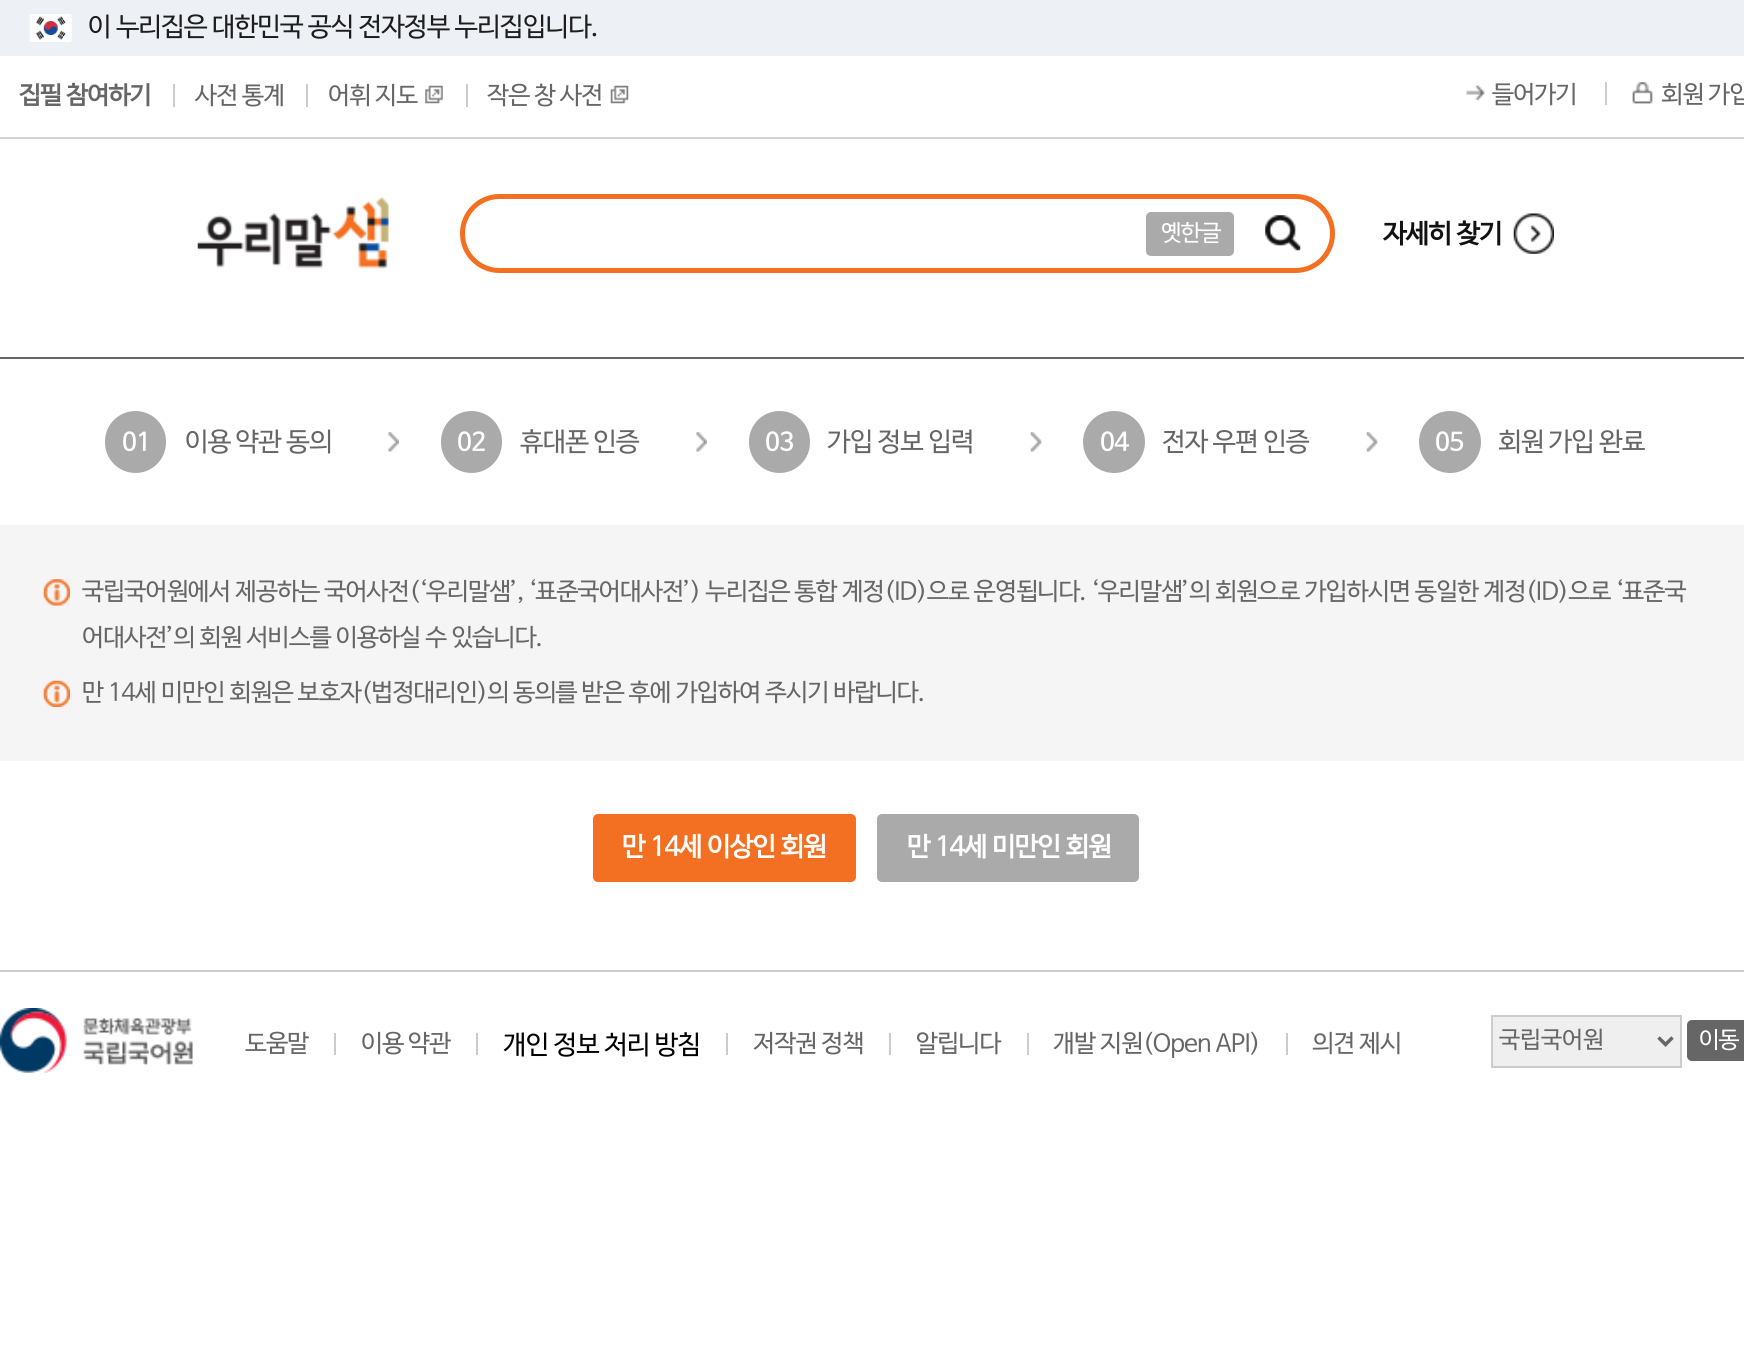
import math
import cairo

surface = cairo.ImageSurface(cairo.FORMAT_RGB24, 1744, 1346)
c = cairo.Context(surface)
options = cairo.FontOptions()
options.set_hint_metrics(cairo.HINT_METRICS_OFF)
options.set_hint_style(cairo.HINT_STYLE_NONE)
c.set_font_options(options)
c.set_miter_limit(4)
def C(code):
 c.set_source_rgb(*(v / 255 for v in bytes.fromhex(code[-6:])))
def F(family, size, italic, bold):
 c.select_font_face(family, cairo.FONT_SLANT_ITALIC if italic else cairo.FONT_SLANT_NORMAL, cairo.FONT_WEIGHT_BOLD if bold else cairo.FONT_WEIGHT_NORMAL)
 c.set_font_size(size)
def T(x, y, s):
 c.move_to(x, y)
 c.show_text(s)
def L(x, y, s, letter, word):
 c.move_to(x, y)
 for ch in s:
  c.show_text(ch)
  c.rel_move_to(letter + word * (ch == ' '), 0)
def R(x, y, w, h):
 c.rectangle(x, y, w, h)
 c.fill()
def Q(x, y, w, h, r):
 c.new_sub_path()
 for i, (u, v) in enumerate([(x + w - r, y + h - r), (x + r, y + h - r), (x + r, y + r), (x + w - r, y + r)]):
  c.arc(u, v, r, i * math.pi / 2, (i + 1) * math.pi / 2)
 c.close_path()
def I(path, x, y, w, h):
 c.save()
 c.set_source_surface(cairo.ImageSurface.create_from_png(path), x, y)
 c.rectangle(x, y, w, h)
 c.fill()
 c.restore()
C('ffffff')
c.paint()
C('edf1f5')
R(0,0,1744,56)
I('1.png',29,14,43,28)
F('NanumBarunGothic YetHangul',26.25,0,0)
C('1d1d1d')
L(88,35,'이 누리집은 대한민국 공식 전자정부 누리집입니다.',-.7,0)
C('d3d3d3')
R(0,137,1744,2)
F('NanumBarunGothic YetHangul',24.5,0,1)
C('666666')
L(19,103,'집필 참여하기',-.7,0)
C('cccccc')
R(173,84,2,23)
F('NanumBarunGothic YetHangul',24.5,0,0)
C('666666')
L(195,103,'사전 통계',-.7,0)
C('cccccc')
R(306,84,2,23)
C('666666')
L(328,103,'어휘 지도',-.7,0)
I('2.png',425,85,18,19)
C('cccccc')
R(466,84,2,23)
C('666666')
L(487,103,'작은 창 사전',-.7,0)
I('3.png',610,85,19,19)
I('4.png',1466,85,19,16)
L(1492,102,'들어가기',-.7,0)
C('cccccc')
R(1605,82,2,23)
I('5.png',1632,82,21,22)
C('666666')
L(1661,102,'회원 가입',-.7,0)
I('6.png',197,197,192,72)
Q(462.5,196.5,870,74,37)
C('f36f21')
c.set_line_width(5)
c.stroke()
C('aaaaaa')
Q(1146,212,88,44,5)
c.fill()
F('NanumBarunGothic YetHangul',23,0,0)
C('ffffff')
L(1161,240,'옛한글',-.7,0)
I('7.png',1265,215,36,36)
I('8.png',1513,213,41,41)
F('NanumBarunGothic YetHangul',26.25,0,1)
C('111111')
L(1383,242,'자세히 찾기',-.7,0)
C('666666')
R(0,357,1744,2)
C('aaaaaa')
Q(105,411,61,62,30.5)
c.fill()
F('NanumBarunGothic YetHangul',24.5,0,1)
C('ffffff')
T(122,450,'01')
F('NanumBarunGothic YetHangul',26.25,0,0)
C('666666')
L(185,450,'이용 약관 동의',-.7,0)
I('9.png',388,432,11,20)
C('aaaaaa')
Q(441,411,61,62,30.5)
c.fill()
F('NanumBarunGothic YetHangul',24.5,0,1)
C('ffffff')
T(457,450,'02')
F('NanumBarunGothic YetHangul',26.25,0,0)
C('666666')
L(520,450,'휴대폰 인증',-.7,0)
I('10.png',696,432,11,20)
C('aaaaaa')
Q(749,411,61,62,30.5)
c.fill()
F('NanumBarunGothic YetHangul',24.5,0,1)
C('ffffff')
T(765,450,'03')
F('NanumBarunGothic YetHangul',26.25,0,0)
C('666666')
L(827,450,'가입 정보 입력',-.7,0)
I('11.png',1030,432,12,20)
C('aaaaaa')
c.arc(1114,442,31,0,2 * math.pi)
c.fill()
F('NanumBarunGothic YetHangul',24.5,0,1)
C('ffffff')
T(1100,450,'04')
F('NanumBarunGothic YetHangul',26.25,0,0)
C('666666')
L(1162,450,'전자 우편 인증',-.7,0)
I('12.png',1366,432,12,20)
C('aaaaaa')
c.arc(1450,442,31,0,2 * math.pi)
c.fill()
F('NanumBarunGothic YetHangul',24.5,0,1)
C('ffffff')
T(1435,450,'05')
F('NanumBarunGothic YetHangul',26.25,0,0)
C('666666')
L(1498,450,'회원 가입 완료',-.7,0)
C('f5f5f5')
R(0,525,1744,236)
I('13.png',43,579,27,27)
F('NanumBarunGothic YetHangul',24.5,0,0)
C('666666')
L(82,599,'국립국어원에서 제공하는 국어사전(‘우리말샘’, ‘표준국어대사전’) 누리집은 통합 계정(ID)으로 운영됩니다. ‘우리말샘’의 회원으로 가입하시면 동일한 계정(ID)으로 ‘표준국',-.7,0)
L(82,645,'어대사전’의 회원 서비스를 이용하실 수 있습니다.',-.7,0)
I('14.png',43,680,27,27)
L(82,700,'만 14세 미만인 회원은 보호자(법정대리인)의 동의를 받은 후에 가입하여 주시기 바랍니다.',-.7,0)
C('f36f21')
Q(593,814,263,68,5)
c.fill()
F('NanumBarunGothic YetHangul',26.25,0,1)
C('ffffff')
L(622,855,'만 14세 이상인 회원',-.7,0)
C('aaaaaa')
Q(877,814,262,68,5)
c.fill()
C('ffffff')
L(907,855,'만 14세 미만인 회원',-.7,0)
C('cccccc')
R(0,970,1744,2)
I('15.png',0,1008,193,65)
F('NanumBarunGothic YetHangul',24.5,0,0)
C('666666')
L(245,1051,'도움말',-.7,0)
C('cccccc')
R(334,1033,2,22)
C('666666')
L(361,1051,'이용 약관',-.7,0)
C('cccccc')
R(476,1033,2,22)
F('NanumBarunGothic YetHangul',26.25,0,0)
C('000000')
L(503,1053,'개인 정보 처리 방침',-.7,0)
C('cccccc')
R(726,1033,2,22)
F('NanumBarunGothic YetHangul',24.5,0,0)
C('666666')
L(753,1051,'저작권 정책',-.7,0)
C('cccccc')
R(889,1033,2,22)
C('666666')
L(916,1051,'알립니다',-.7,0)
C('cccccc')
R(1027,1033,2,22)
C('666666')
L(1053,1051,'개발 지원(Open API)',-.7,0)
C('cccccc')
R(1286,1033,2,22)
C('666666')
L(1312,1051,'의견 제시',-.7,0)
C('efefef')
c.rectangle(1492,1016,189,51)
c.fill_preserve()
C('cccccc')
c.set_line_width(2)
c.stroke()
c.new_path()
c.move_to(1658.5,1037.5)
c.line_to(1665.5,1044.5)
c.line_to(1672.5,1037.5)
C('666666')
c.set_line_width(3.5)
c.stroke()
F('NanumBarunGothic YetHangul',23.5,0,0)
T(1499,1047,'국립국어원')
Q(1687,1020,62,41,5)
c.fill()
F('NanumBarunGothic YetHangul',23,0,0)
C('ffffff')
L(1699,1047,'이동',-.7,0)
surface.write_to_png('o.png')
